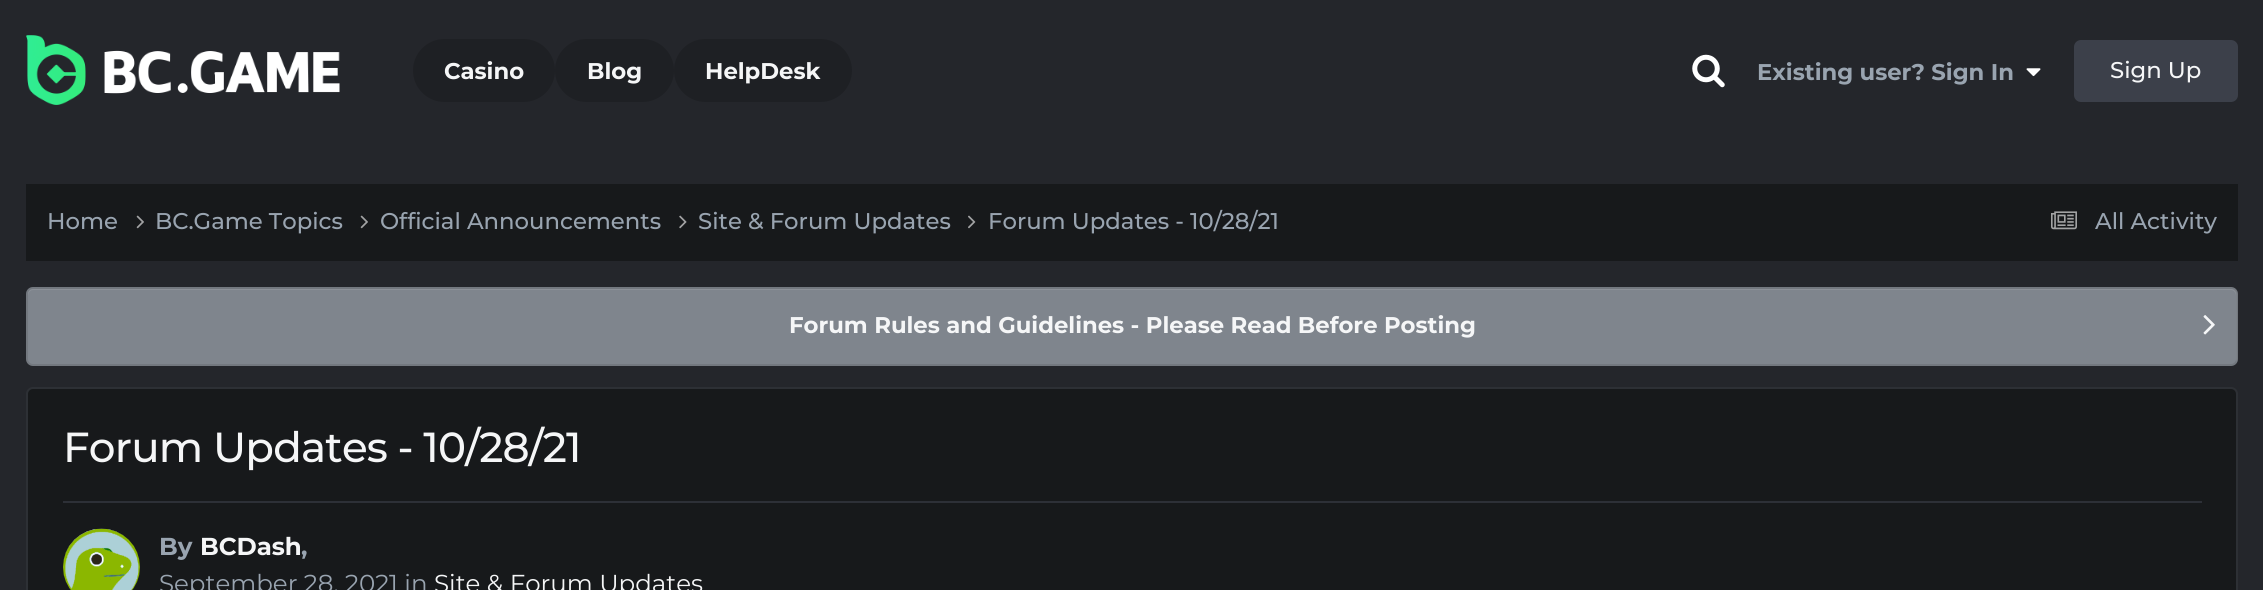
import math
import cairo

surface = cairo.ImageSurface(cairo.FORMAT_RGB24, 2263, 590)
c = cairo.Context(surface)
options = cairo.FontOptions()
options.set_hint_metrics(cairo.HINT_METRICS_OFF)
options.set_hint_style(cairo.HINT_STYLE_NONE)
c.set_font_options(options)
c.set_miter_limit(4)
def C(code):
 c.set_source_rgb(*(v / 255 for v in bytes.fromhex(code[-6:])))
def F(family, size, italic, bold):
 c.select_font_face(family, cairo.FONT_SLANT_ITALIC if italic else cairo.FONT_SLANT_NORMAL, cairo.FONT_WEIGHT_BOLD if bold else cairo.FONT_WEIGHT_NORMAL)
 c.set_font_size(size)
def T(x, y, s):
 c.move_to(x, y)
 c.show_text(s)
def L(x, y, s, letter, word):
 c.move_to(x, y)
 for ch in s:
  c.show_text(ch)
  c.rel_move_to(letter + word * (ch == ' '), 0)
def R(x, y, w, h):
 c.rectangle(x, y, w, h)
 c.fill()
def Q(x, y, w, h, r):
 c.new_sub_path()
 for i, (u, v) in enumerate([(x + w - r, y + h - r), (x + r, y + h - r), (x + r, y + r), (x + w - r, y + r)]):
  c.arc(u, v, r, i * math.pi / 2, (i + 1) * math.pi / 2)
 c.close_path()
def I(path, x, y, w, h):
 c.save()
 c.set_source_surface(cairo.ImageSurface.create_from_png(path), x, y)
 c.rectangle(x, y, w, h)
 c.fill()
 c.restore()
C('24262b')
c.paint()
I('1.png',26,35,314,70)
C('1e2024')
Q(413,39,142,63,31.5)
c.fill()
F('Montserrat',22.75,0,1)
C('f5f6f7')
T(444,79,'Casino')
C('1e2024')
Q(555,39,119,63,31.5)
c.fill()
C('f5f6f7')
T(587,79,'Blog')
C('1e2024')
Q(674,39,178,63,31.5)
c.fill()
C('f5f6f7')
T(705,79,'HelpDesk')
I('2.png',1692,54,33,34)
C('99a4b0')
T(1757,80,'Existing user? Sign In')
I('3.png',2026,68,15,9)
C('3c404a')
Q(2074,40,164,62,7)
c.fill()
F('Montserrat Medium',22.75,0,0)
C('f5f6f7')
T(2110,78,'Sign Up')
C('17191b')
R(26,184,2212,77)
C('99a4b0')
T(47,229,'Home')
I('4.png',136,215,8,14)
T(155,229,'BC.Game Topics')
I('4.png',360,215,8,14)
T(380,229,'Official Announcements')
I('5.png',679,215,8,14)
T(698,229,'Site & Forum Updates')
I('6.png',968,215,8,14)
T(988,229,'Forum Updates - 10/28/21')
I('7.png',2051,211,26,19)
T(2095,229,'All Activity')
C('7f858d')
Q(26,287,2212,79,7)
c.fill()
C('8c9198')
c.new_path()
c.move_to(33,290)
c.line_to(2231,290)
c.curve_to(2234,290,2236,293,2236,296)
c.line_to(2236,360)
c.line_to(2236,363)
c.curve_to(2236,362,2237,360,2237,359)
c.line_to(2237,294)
c.curve_to(2237,291,2235,289,2232,289)
c.line_to(33,289)
c.curve_to(30,289,28,291,28,294)
c.line_to(28,296)
c.curve_to(28,293,30,290,33,290)
c.close_path()
c.fill()
Q(27,288,2210,77,6)
c.set_source_rgba(0,0,0,0.1)
c.stroke()
F('Montserrat',22.75,0,1)
C('f5f6f7')
T(789,333,'Forum Rules and Guidelines - Please Read Before Posting')
I('8.png',2203,315,12,20)
C('17191b')
Q(27,388,2210,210,6)
c.fill_preserve()
C('2d3035')
c.stroke()
F('Montserrat Medium',42,0,0)
C('f5f6f7')
L(63,462,'Forum Updates - 10/28/21',-.8,0)
C('2d3037')
R(63,501,2139,2)
I('9.png',63,528,77,62)
F('Montserrat',24.5,0,1)
C('99a4b0')
T(159,555,'By')
C('f5f6f7')
T(200,555,'BCDash')
C('99a4b0')
T(301,555,',')
F('Montserrat',24.5,0,0)
T(159,592,'September 28, 2021 in')
C('f5f6f7')
T(434,592,'Site & Forum Updates')
surface.write_to_png('o.png')
